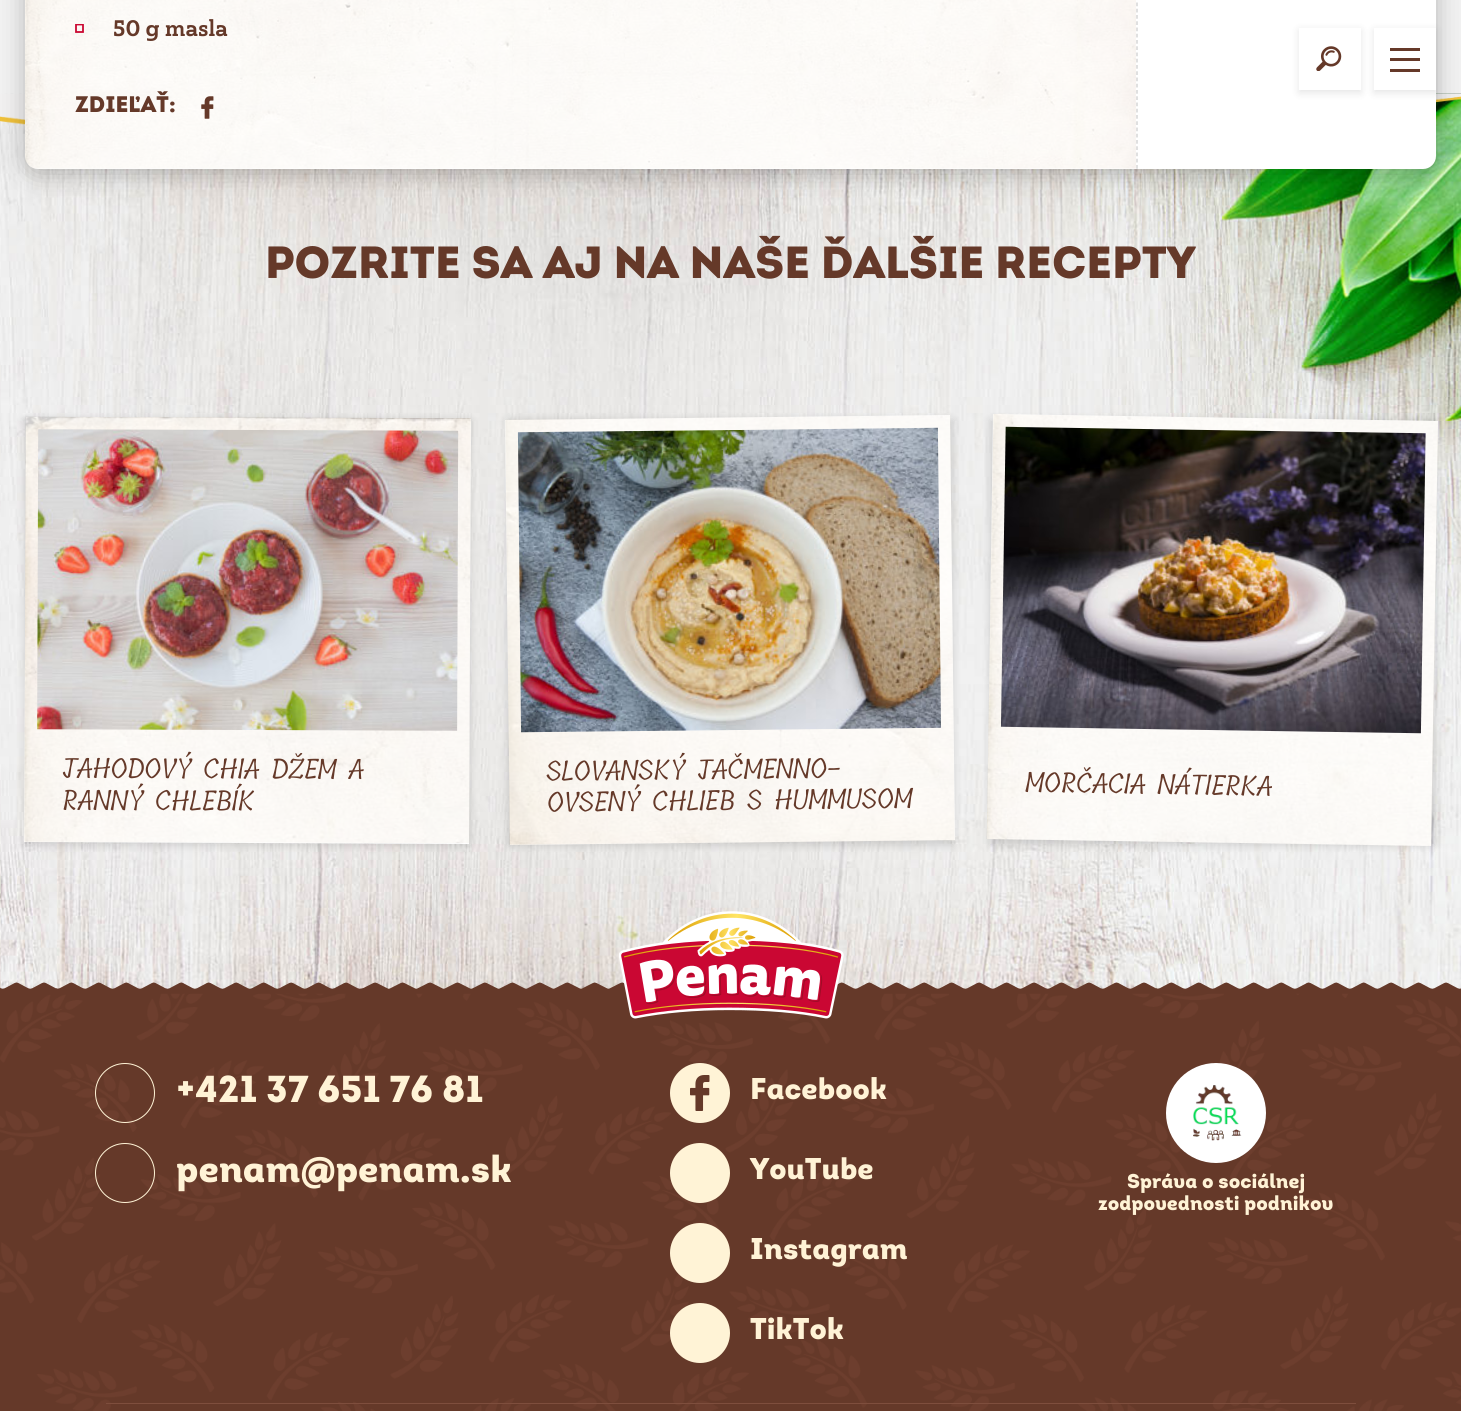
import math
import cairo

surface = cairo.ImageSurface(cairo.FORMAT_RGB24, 1461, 1411)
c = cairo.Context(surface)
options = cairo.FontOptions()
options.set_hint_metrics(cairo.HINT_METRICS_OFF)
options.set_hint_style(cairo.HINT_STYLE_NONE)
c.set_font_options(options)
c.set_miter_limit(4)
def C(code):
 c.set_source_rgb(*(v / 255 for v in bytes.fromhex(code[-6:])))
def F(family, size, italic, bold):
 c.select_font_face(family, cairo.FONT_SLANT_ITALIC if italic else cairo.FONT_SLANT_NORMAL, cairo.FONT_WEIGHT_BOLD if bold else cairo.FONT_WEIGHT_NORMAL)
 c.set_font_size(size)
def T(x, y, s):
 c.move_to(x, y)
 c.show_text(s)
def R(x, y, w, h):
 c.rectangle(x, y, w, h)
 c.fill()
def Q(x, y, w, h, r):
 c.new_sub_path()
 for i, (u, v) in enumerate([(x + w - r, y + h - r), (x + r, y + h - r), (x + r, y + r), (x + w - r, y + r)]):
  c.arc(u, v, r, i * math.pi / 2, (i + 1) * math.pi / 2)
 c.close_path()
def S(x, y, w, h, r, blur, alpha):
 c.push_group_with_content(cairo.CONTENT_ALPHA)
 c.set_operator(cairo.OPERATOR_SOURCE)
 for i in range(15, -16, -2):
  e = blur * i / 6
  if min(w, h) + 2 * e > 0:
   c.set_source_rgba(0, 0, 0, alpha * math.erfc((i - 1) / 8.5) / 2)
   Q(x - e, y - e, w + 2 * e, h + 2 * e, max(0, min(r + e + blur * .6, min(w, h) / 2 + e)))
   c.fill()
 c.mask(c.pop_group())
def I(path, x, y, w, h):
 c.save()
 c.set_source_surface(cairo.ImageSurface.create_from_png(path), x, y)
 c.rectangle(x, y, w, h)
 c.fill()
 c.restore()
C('f2f2f2')
c.paint()
I('4.png',0,93,1461,896)
I('3.png',0,93,1461,32)
C('000000')
S(25,-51,1411,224,13,12.5,.25)
C('ffffff')
Q(25,-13,1411,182,13)
c.fill()
I('1.png',25,0,1111,169)
c.save()
c.rectangle(75,24,10,10)
c.clip()
c.new_path()
c.move_to(76,24.5)
c.line_to(83,24.5)
c.line_to(83,32)
c.line_to(76,32)
c.close_path()
C('ca0832')
c.set_line_width(1.8)
c.stroke()
c.restore()
F('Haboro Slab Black',22.5,0,0)
C('653929')
T(113,36,'50 g masla')
F('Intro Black',22.5,0,0)
T(75,112,'ZDIEĽAŤ:')
I('2.png',201,96,13,23)
c.new_path()
c.move_to(1137,-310)
c.line_to(1137,169)
C('cccccc')
c.set_line_width(1.2)
c.set_dash([3.75,2.5])
c.stroke()
F('Intro Black',45,0,0)
C('653929')
T(265,278,'POZRITE SA AJ NA NAŠE ĎALŠIE RECEPTY')
C('000000')
S(25,420,445,425,0,4.5,.15)
C('ffffff')
c.new_path()
c.move_to(26,417)
c.line_to(471,419)
c.line_to(469,844)
c.line_to(24,842)
c.close_path()
c.fill()
I('5.png',24,416,447,428)
I('6.png',37,429,422,302)
F('Tillana',27.5,0,0)
C('653929')
c.save()
c.translate(62,778)
c.rotate(0.2 * math.pi / 180)
T(0,0,'JAHODOVÝ CHIA DŽEM A')
c.restore()
c.save()
c.translate(62,810)
c.rotate(0.2 * math.pi / 180)
T(0,0,'RANNÝ CHLEBÍK')
c.restore()
C('000000')
S(508,420,445,425,0,4.5,.15)
C('ffffff')
c.new_path()
c.move_to(505,420)
c.line_to(950,415)
c.line_to(955,840)
c.line_to(510,845)
c.close_path()
c.fill()
I('7.png',505,415,450,430)
I('8.png',517,427,424,306)
C('653929')
c.save()
c.translate(546,781)
c.rotate(-0.6 * math.pi / 180)
T(0,0,'SLOVANSKÝ JAČMENNO-')
c.restore()
c.save()
c.translate(547,812)
c.rotate(-0.6 * math.pi / 180)
T(0,0,'OVSENÝ CHLIEB S HUMMUSOM')
c.restore()
C('000000')
S(990,420,445,425,0,4.5,.15)
C('ffffff')
c.new_path()
c.move_to(993,414)
c.line_to(1438,421)
c.line_to(1431,846)
c.line_to(987,839)
c.close_path()
c.fill()
I('9.png',986,414,452,432)
I('10.png',1000,426,426,308)
C('653929')
c.save()
c.translate(1025,792)
c.rotate(0.9 * math.pi / 180)
T(0,0,'MORČACIA NÁTIERKA')
c.restore()
c.save()
c.set_fill_rule(cairo.FILL_RULE_EVEN_ODD)
c.new_path()
c.move_to(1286,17)
c.line_to(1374,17)
c.line_to(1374,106)
c.line_to(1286,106)
c.close_path()
c.move_to(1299,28)
c.line_to(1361,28)
c.line_to(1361,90)
c.line_to(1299,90)
c.close_path()
c.clip()
C('000000')
S(1299,30,62,63,0,4,.1)
c.restore()
I('11.png',1316,46,26,25)
c.save()
c.set_fill_rule(cairo.FILL_RULE_EVEN_ODD)
c.new_path()
c.move_to(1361,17)
c.line_to(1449,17)
c.line_to(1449,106)
c.line_to(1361,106)
c.close_path()
c.move_to(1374,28)
c.line_to(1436,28)
c.line_to(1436,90)
c.line_to(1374,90)
c.close_path()
c.clip()
C('000000')
S(1374,30,62,63,0,4,.1)
c.restore()
R(1390,48,30,3)
R(1390,58,30,3)
R(1390,69,30,3)
R(0,993,1461,418)
I('14.png',0,993,1461,418)
I('13.png',0,982,1461,12)
I('12.png',619,911,225,108)
c.arc(125,1093,29.5,0,2 * math.pi)
C('fff3d6')
c.set_line_width(1)
c.set_dash([])
c.stroke()
F('Intro Black',37.5,0,0)
T(176,1102,'+421 37 651 76 81')
c.new_path()
c.arc(125,1173,29.5,0,2 * math.pi)
c.stroke()
T(176,1182,'penam@penam.sk')
c.new_path()
c.arc(700,1093,30,0,2 * math.pi)
c.fill()
I('15.png',690,1075,20,36)
F('Intro Black',30,0,0)
T(750,1099,'Facebook')
c.new_path()
c.arc(700,1173,30,0,2 * math.pi)
c.fill()
T(750,1179,'YouTube')
c.new_path()
c.arc(700,1253,30,0,2 * math.pi)
c.fill()
T(750,1259,'Instagram')
c.new_path()
c.arc(700,1333,30,0,2 * math.pi)
c.fill()
T(750,1339,'TikTok')
C('ffffff')
c.new_path()
c.arc(1216,1113,50,0,2 * math.pi)
c.fill()
I('16.png',1193,1085,49,56)
F('Intro Black',20,0,0)
C('fff3d6')
T(1127,1188,'Správa o sociálnej')
T(1098,1210,'zodpovednosti podnikov')
C('7e4e3d')
R(106,1403,1250,1)
surface.write_to_png('o.png')
